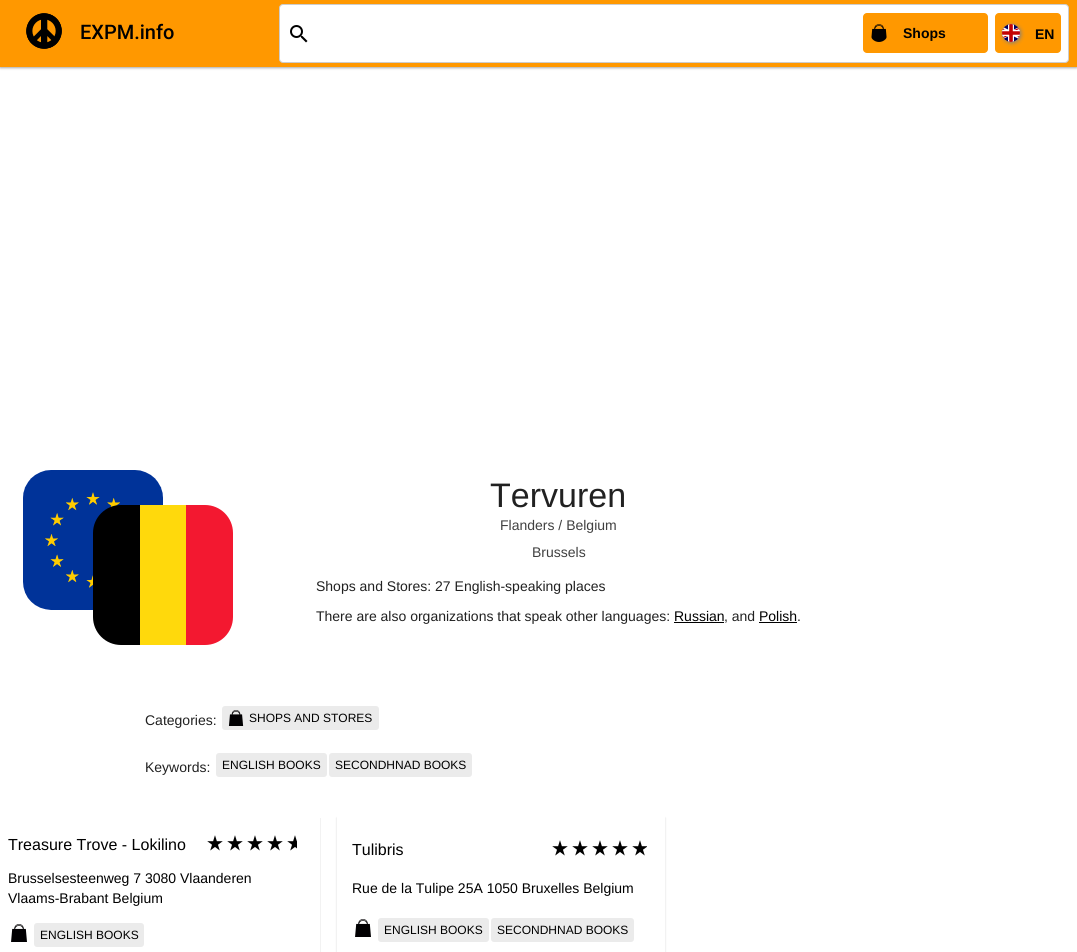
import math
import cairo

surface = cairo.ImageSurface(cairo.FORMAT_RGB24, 1077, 952)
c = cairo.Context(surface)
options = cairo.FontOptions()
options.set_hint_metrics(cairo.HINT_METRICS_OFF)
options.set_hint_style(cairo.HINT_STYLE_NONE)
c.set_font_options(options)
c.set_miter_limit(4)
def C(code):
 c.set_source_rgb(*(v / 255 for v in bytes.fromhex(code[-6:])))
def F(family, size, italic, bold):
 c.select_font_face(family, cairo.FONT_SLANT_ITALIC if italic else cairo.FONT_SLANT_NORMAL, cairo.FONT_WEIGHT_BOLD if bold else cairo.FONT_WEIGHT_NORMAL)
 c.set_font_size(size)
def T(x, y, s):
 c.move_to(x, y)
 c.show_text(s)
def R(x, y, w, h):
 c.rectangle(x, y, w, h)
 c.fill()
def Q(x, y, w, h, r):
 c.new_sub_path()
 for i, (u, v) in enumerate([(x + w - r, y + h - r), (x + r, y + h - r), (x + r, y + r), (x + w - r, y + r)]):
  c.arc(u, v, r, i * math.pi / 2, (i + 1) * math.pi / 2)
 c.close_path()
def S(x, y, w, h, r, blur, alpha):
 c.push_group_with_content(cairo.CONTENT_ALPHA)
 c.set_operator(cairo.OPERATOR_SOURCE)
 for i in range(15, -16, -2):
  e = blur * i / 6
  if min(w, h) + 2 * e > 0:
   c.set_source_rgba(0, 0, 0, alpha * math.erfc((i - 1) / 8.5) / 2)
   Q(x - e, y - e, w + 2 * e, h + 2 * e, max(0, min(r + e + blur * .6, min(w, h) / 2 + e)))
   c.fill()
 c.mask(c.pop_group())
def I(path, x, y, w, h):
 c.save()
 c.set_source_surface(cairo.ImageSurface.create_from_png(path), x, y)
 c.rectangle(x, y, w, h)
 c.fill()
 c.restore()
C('ffffff')
c.paint()
C('000000')
S(0,1,1077,67,0,1,.24)
S(0,1,1077,67,0,1.5,.12)
C('ff9800')
R(0,0,1077,67)
I('1.png',26,13,36,36)
F('Roboto Medium',20,0,0)
C('000000')
T(80,39,'EXPM.info')
C('ffffff')
Q(279.5,4.5,789,58,3.5)
c.fill_preserve()
C('cccccc')
c.set_line_width(1)
c.stroke()
I('2.png',290,25,18,18)
C('ff9800')
Q(863,13,125,40,4)
c.fill()
I('3.png',871,24,16,18)
F('Liberation Sans',14,0,1)
C('000000')
T(903,38,'Shops')
C('ff9800')
Q(995,13,66,40,4)
c.fill()
I('4.png',999,21,26,26)
C('000000')
T(1035,39,'EN')
I('5.png',23,470,140,140)
c.new_path()
c.move_to(121,505)
c.line_to(140,505)
c.line_to(140,645)
c.line_to(121,645)
c.curve_to(105.5,645,93,632.5,93,617)
c.line_to(93,533)
c.curve_to(93,517.5,105.5,505,121,505)
c.close_path()
c.fill()
C('ffd90c')
R(140,505,46,140)
C('f31830')
c.new_path()
c.move_to(186,505)
c.line_to(205,505)
c.curve_to(220.5,505,233,517.5,233,533)
c.line_to(233,617)
c.curve_to(233,632.5,220.5,645,205,645)
c.line_to(186,645)
c.close_path()
c.fill()
F('Liberation Sans',34,0,0)
C('212121')
T(490,507,'Tervuren')
F('Liberation Sans',14,0,0)
C('404040')
T(500,530,'Flanders / Belgium')
T(532,557,'Brussels')
C('212121')
T(316,591,'Shops and Stores: 27 English-speaking places')
T(316,621,'There are also organizations that speak other languages:')
C('000000')
T(674,621,'Russian')
R(674,622,50,1)
C('212121')
T(724,621,', and')
C('000000')
T(759,621,'Polish')
R(759,622,38,1)
C('212121')
T(797,621,'.')
T(145,725,'Categories:')
C('ebebeb')
Q(222,706,157,24,3)
c.fill()
I('6.png',228,710,16,16)
F('Liberation Sans',12,0,0)
C('000000')
T(249,722,'SHOPS AND STORES')
F('Liberation Sans',14,0,0)
C('212121')
T(145,772,'Keywords:')
C('ebebeb')
Q(216,753,111,24,3)
c.fill()
F('Liberation Sans',12,0,0)
C('000000')
T(222,769,'ENGLISH BOOKS')
C('ebebeb')
Q(329,753,143,24,3)
c.fill()
C('000000')
T(335,769,'SECONDHNAD BOOKS')
c.save()
c.rectangle(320,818,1,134)
c.clip()
C('000000')
S(-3,818,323,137,0,1,.16)
c.restore()
F('Liberation Sans',16,0,0)
T(8,850,'Treasure Trove - Lokilino')
I('7.png',207,835,16,16)
I('7.png',227,835,16,16)
I('7.png',247,835,16,16)
I('7.png',267,835,16,16)
I('8.png',287,835,10,16)
F('Liberation Sans',14,0,0)
T(8,883,'Brusselsesteenweg 7 3080 Vlaanderen')
T(8,903,'Vlaams-Brabant Belgium')
I('9.png',11,924,16,18)
C('ebebeb')
Q(34,923,110,24,3)
c.fill()
F('Liberation Sans',12,0,0)
C('000000')
T(40,939,'ENGLISH BOOKS')
c.save()
c.set_fill_rule(cairo.FILL_RULE_EVEN_ODD)
c.new_path()
c.move_to(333,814)
c.line_to(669,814)
c.line_to(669,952)
c.line_to(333,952)
c.close_path()
c.move_to(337,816)
c.line_to(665,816)
c.line_to(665,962)
c.line_to(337,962)
c.close_path()
c.clip()
C('000000')
S(337,818,328,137,0,1,.16)
c.restore()
F('Liberation Sans',16,0,0)
T(352,855,'Tulibris')
I('7.png',552,840,16,16)
I('7.png',572,840,16,16)
I('7.png',592,840,16,16)
I('7.png',612,840,16,16)
I('10.png',632,840,15,16)
F('Liberation Sans',14,0,0)
T(352,893,'Rue de la Tulipe 25A 1050 Bruxelles Belgium')
I('9.png',355,919,16,18)
C('ebebeb')
Q(378,918,111,24,3)
c.fill()
F('Liberation Sans',12,0,0)
C('000000')
T(384,934,'ENGLISH BOOKS')
C('ebebeb')
Q(491,918,143,24,3)
c.fill()
C('000000')
T(497,934,'SECONDHNAD BOOKS')
surface.write_to_png('o.png')
